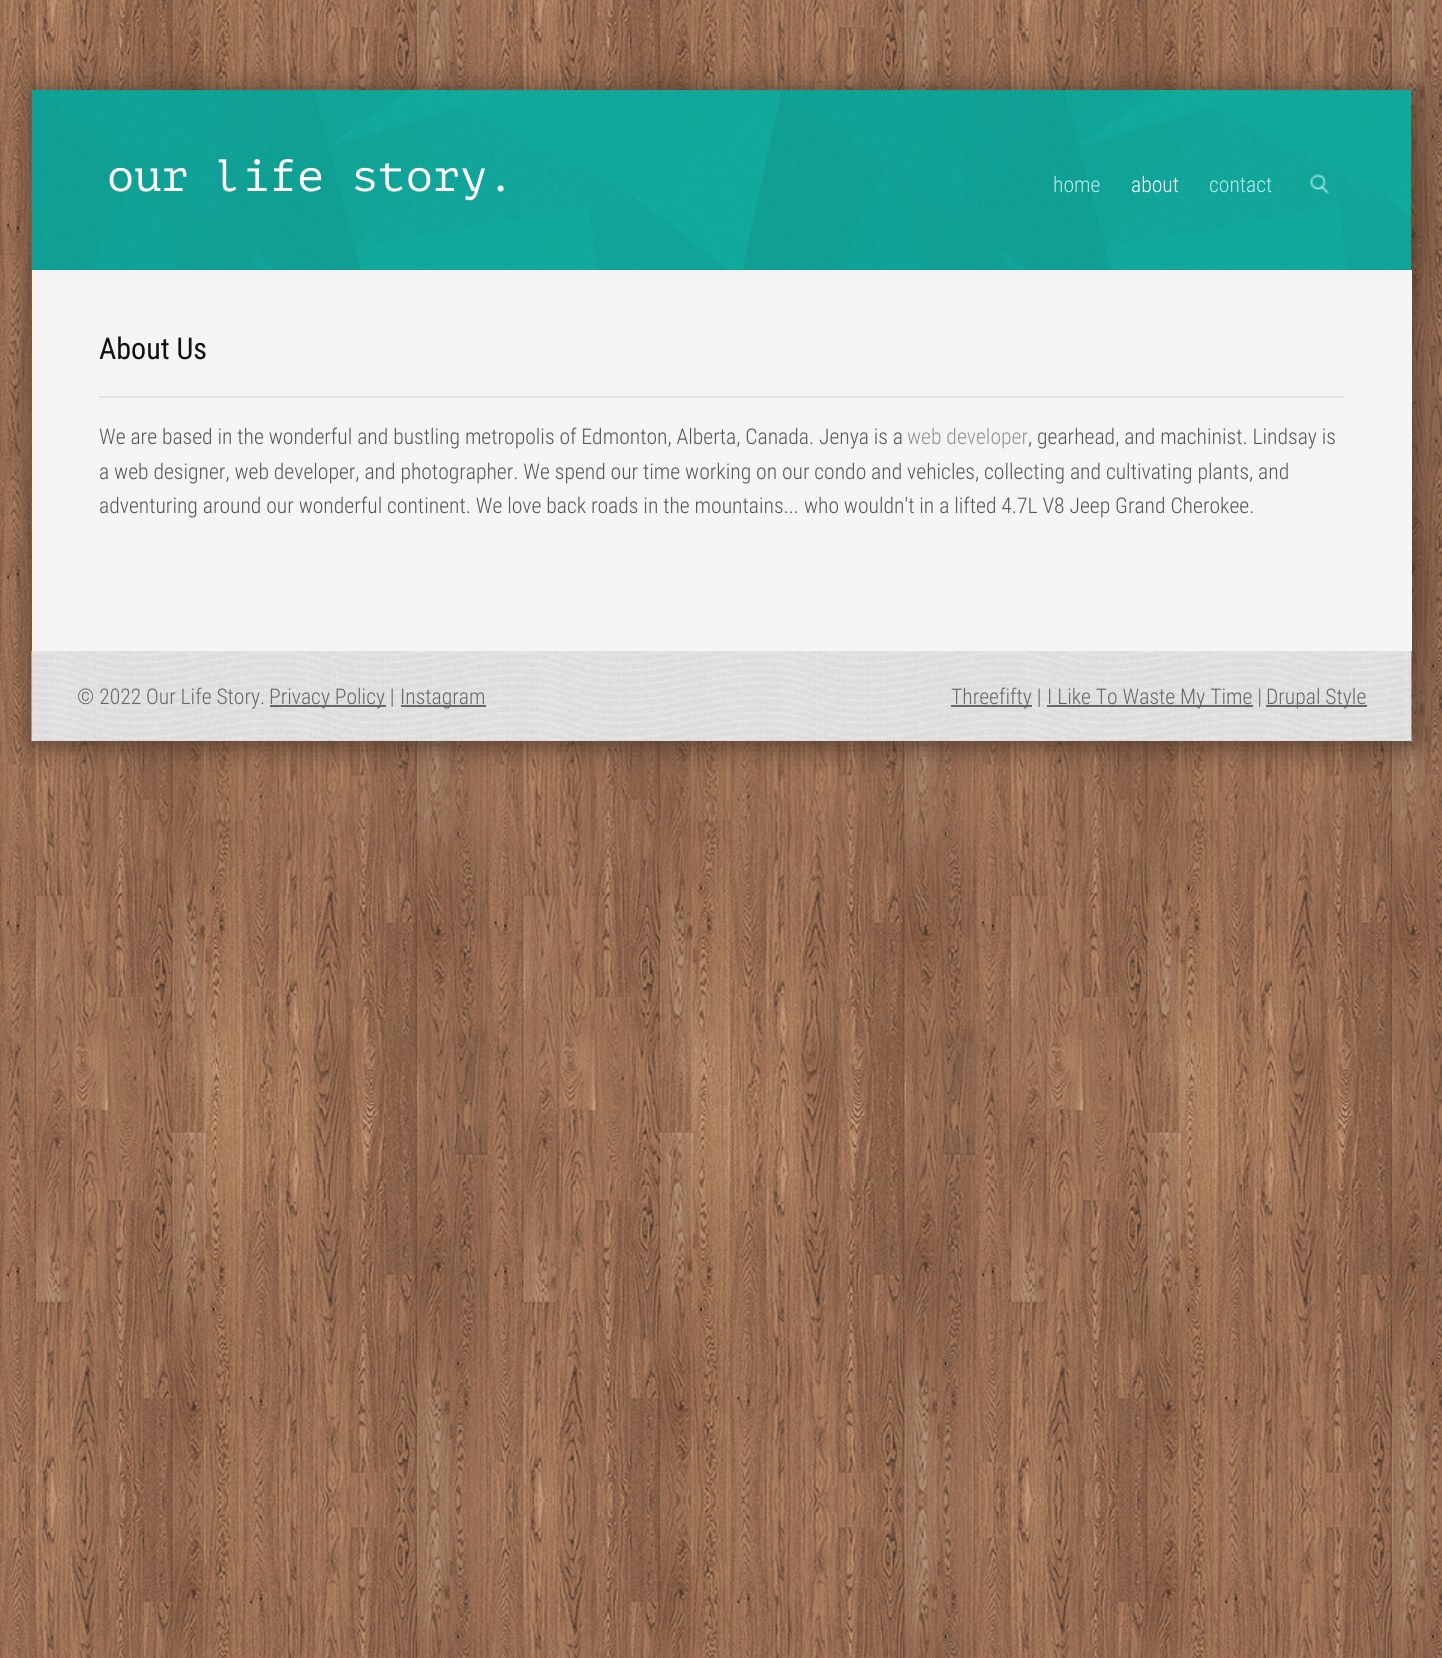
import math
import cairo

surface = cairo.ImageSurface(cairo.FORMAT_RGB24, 1442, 1658)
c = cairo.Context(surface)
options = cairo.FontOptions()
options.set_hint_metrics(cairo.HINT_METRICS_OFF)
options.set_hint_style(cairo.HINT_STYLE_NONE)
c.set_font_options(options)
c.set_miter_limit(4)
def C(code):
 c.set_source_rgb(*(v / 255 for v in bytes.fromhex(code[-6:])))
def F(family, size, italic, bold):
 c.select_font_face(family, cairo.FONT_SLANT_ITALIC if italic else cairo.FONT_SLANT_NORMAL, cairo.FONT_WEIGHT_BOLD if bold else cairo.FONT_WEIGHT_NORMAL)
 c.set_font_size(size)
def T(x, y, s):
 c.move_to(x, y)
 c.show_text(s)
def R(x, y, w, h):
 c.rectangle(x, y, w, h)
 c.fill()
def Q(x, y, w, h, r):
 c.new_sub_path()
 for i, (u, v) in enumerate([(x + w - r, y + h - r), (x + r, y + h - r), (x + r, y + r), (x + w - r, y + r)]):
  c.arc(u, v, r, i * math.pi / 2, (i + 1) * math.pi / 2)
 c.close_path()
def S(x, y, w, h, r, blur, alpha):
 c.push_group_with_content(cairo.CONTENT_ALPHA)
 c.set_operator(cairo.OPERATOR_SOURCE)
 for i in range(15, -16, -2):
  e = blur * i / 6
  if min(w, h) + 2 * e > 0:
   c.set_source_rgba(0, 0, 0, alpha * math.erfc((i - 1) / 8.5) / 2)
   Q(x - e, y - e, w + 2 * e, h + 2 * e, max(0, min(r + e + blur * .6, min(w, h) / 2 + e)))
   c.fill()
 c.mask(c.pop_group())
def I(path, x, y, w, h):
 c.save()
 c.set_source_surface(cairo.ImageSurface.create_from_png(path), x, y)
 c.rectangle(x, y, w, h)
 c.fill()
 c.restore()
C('ffffff')
c.paint()
I('1.png',0,0,1442,1658)
C('4f372a')
S(35,93,1380,651,0,15,1)
I('2.png',31,90,1381,180)
F('PT Mono',45.25,0,0)
C('ffffff')
T(107,191,'our life story.')
F('Roboto Condensed Light',21.6,0,0)
C('b4f1ec')
T(1053,192,'home')
C('ffffff')
T(1131,192,'about')
C('b4f1ec')
T(1209,192,'contact')
I('3.png',1309,173,21,21)
C('f5f5f5')
R(32,270,1380,381)
F('Roboto Condensed',30,0,0)
C('111111')
T(99,359,'About Us')
C('e3e3e3')
R(99,396,1245,2)
F('Roboto Condensed Light',21.6,0,0)
C('555555')
T(99,444,'We are based in the wonderful and bustling metropolis of Edmonton, Alberta, Canada. Jenya is a')
C('919191')
T(907,444,'web developer')
C('555555')
T(1028,444,', gearhead, and machinist. Lindsay is')
T(99,479,'a web designer, web developer, and photographer. We spend our time working on our condo and vehicles, collecting and cultivating plants, and')
T(99,513,'adventuring around our wonderful continent. We love back roads in the mountains... who wouldn\'t in a lifted 4.7L V8 Jeep Grand Cherokee.')
I('4.png',31,651,1381,90)
C('666666')
T(77,704,'© 2022 Our Life Story.')
R(270,705,116,2)
T(269,704,'Privacy Policy |')
R(401,705,85,2)
T(400,704,'Instagram')
R(951,705,81,2)
T(951,704,'Threefifty |')
R(1047,705,206,2)
T(1047,704,'I Like To Waste My Time |')
R(1266,705,101,2)
T(1266,704,'Drupal Style')
surface.write_to_png('o.png')
